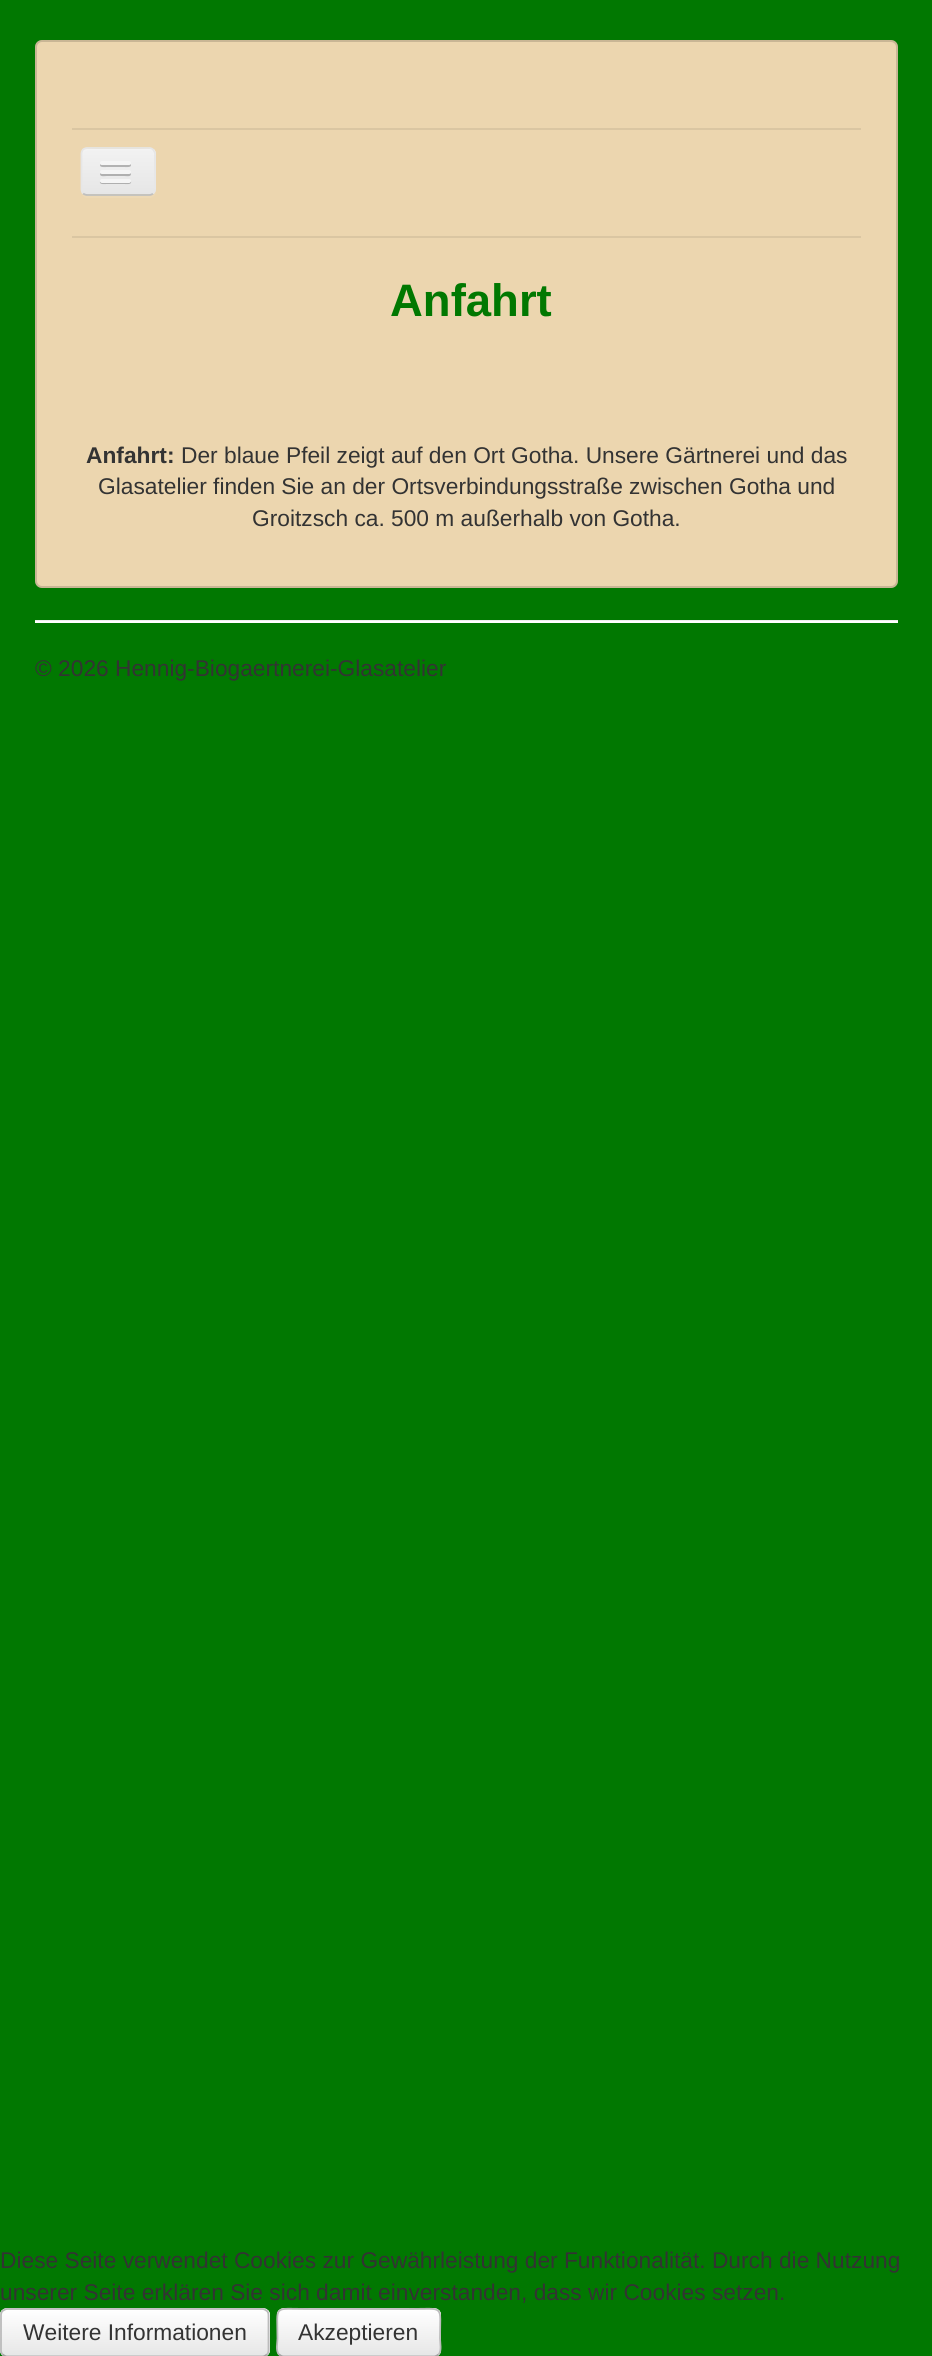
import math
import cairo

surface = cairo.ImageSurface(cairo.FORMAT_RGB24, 932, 2356)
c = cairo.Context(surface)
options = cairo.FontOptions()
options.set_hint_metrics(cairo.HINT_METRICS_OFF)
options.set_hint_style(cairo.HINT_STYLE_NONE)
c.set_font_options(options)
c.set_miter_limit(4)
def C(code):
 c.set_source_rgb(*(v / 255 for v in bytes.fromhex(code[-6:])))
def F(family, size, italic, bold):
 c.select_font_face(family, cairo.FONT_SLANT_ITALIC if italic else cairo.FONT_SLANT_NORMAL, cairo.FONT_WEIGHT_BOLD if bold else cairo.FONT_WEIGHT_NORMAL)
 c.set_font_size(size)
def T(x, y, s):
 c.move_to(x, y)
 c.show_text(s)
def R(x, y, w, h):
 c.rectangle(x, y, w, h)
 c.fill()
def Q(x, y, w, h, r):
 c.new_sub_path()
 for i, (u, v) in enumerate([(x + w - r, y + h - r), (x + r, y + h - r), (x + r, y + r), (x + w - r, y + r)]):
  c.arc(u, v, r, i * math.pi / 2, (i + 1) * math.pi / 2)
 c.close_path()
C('017801')
c.paint()
C('ecd6af')
Q(35,40,863,548,7)
c.fill()
Q(36,41,861,546,6)
c.set_source_rgba(0,0,0,0.15)
c.stroke()
C('dac6a2')
R(72,128,789,2)
R(72,236,789,2)
C('edd9b5')
c.new_path()
c.move_to(81,192)
c.curve_to(81,195,84,198,88,198)
c.line_to(149,198)
c.curve_to(153,198,156,195,156,191)
c.line_to(156,154)
c.line_to(156,189)
c.curve_to(156,193,153,196,149,196)
c.line_to(88,196)
c.curve_to(85,196,82,194,81,192)
c.close_path()
c.fill()
c.save()
Q(81,147,75,49,7)
c.clip()
gradient = cairo.LinearGradient(118,149,118,194)
gradient.add_color_stop_rgba(0,0.949,0.949,0.949,1)
gradient.add_color_stop_rgba(1,0.902,0.902,0.902,1)
c.set_source(gradient)
R(81,149,75,45)
c.restore()
C('f3f3f3')
c.new_path()
c.move_to(88,150)
c.line_to(149,150)
c.curve_to(152,150,154,153,154,156)
c.curve_to(154,146,147,149,139,149)
c.line_to(97,149)
c.curve_to(89,149,82,146,82,156)
c.curve_to(82,153,85,150,88,150)
c.close_path()
c.fill()
c.new_path()
c.move_to(153,193.5)
c.curve_to(152,194.5,150.5,195,149,195)
c.line_to(87.5,195)
c.curve_to(86,195,84.5,194.5,83,193.5)
C('bfbfbf')
c.set_line_width(1.8)
c.stroke()
c.new_path()
c.move_to(83,193.5)
c.curve_to(82,192,81.5,190.5,81.5,189)
c.line_to(81.5,154)
c.curve_to(81.5,152.5,82,151,83,149.5)
c.curve_to(84.5,148.5,86,148,87.5,148)
c.line_to(149,148)
c.curve_to(150.5,148,152,148.5,153,149.5)
c.curve_to(154,151,155,152.5,155,154)
c.line_to(155,189)
c.curve_to(155,190.5,154,192,153,193.5)
C('e6e6e6')
c.stroke()
C('b2b2b2')
c.new_path()
c.move_to(100.5,164)
c.curve_to(98,168,106,167,106.5,167)
c.line_to(124.5,167)
c.curve_to(125,167,133,168,130.5,164)
c.line_to(129.5,164.5)
c.line_to(101.5,164.5)
c.close_path()
c.fill()
C('f5f5f5')
Q(100,161,31,4,2)
c.fill()
C('b0b0b0')
c.new_path()
c.move_to(100.5,173)
c.line_to(100,174.5)
c.curve_to(100.5,177,105.5,176,106.5,176)
c.line_to(124.5,176)
c.curve_to(125.5,176,130.5,177,131,174.5)
c.line_to(130.5,173)
c.curve_to(129.5,173.5,101.5,173.5,100.5,173)
c.close_path()
c.fill()
C('f5f5f5')
Q(100,170,31,4,2)
c.fill()
C('afafaf')
c.new_path()
c.move_to(100,181.5)
c.curve_to(99,185,105.5,184,106.5,184)
c.line_to(124.5,184)
c.curve_to(125.5,184,132,185,131,181.5)
c.line_to(129.5,182)
c.line_to(101.5,182)
c.close_path()
c.fill()
C('f5f5f5')
Q(100,179,31,4,2)
c.fill()
F('Liberation Sans',45.5,0,1)
C('017801')
T(390,316,'Anfahrt')
F('Liberation Sans',22.75,0,1)
C('333333')
T(86,463,'Anfahrt:')
F('Liberation Sans',22.75,0,0)
T(181,463,'Der blaue Pfeil zeigt auf den Ort Gotha. Unsere Gärtnerei und das')
T(98,494,'Glasatelier finden Sie an der Ortsverbindungsstraße zwischen Gotha und')
T(252,526,'Groitzsch ca. 500 m außerhalb von Gotha.')
C('eeeeee')
R(35,620,863,1)
C('ffffff')
R(35,621,863,2)
C('333333')
T(35,676,'© 2026 Hennig-Biogaertnerei-Glasatelier')
T(0,2268,'Diese Seite verwendet Cookies zur Gewährleistung der Funktionalität. Durch die Nutzung')
T(0,2300,'unserer Seite erklären Sie sich damit einverstanden, dass wir Cookies setzen.')
C('f5f5f5')
Q(0,2308,270,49,7)
c.fill()
c.save()
Q(0,2308,270,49,7)
c.clip()
gradient = cairo.LinearGradient(135,2310,135,2356)
gradient.add_color_stop_rgba(0,1,1,1,1)
gradient.add_color_stop_rgba(1,0.902,0.902,0.902,1)
c.set_source(gradient)
R(0,2310,270,46)
c.restore()
c.new_path()
c.move_to(267,2354.5)
c.curve_to(265.5,2355.5,264,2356.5,262.5,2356.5)
c.line_to(7,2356.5)
c.curve_to(5.5,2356.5,4,2355.5,2.5,2354.5)
C('a2a2a2')
c.stroke()
c.new_path()
c.move_to(2.5,2354.5)
c.curve_to(1.5,2353.5,1,2352,1,2350)
c.line_to(1,2315)
c.curve_to(1,2313.5,1.5,2312,2.5,2311)
c.curve_to(4,2310,5.5,2309,7,2309)
c.line_to(262.5,2309)
c.curve_to(264,2309,265.5,2310,267,2311)
c.curve_to(268,2312,268.5,2313.5,268.5,2315)
c.line_to(268.5,2350)
c.curve_to(268.5,2352,268,2353.5,267,2354.5)
C('bbbbbb')
c.stroke()
C('333333')
T(23,2340,'Weitere Informationen')
C('f5f5f5')
Q(277,2308,164,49,7)
c.fill()
c.save()
Q(277,2308,164,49,7)
c.clip()
gradient = cairo.LinearGradient(359,2310,359,2356)
gradient.add_color_stop_rgba(0,1,1,1,1)
gradient.add_color_stop_rgba(1,0.902,0.902,0.902,1)
c.set_source(gradient)
R(277,2310,164,46)
c.restore()
c.new_path()
c.move_to(438.5,2354.5)
c.curve_to(437,2355.5,435.5,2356.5,434,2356.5)
c.line_to(283.5,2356.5)
c.curve_to(282,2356.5,280.5,2355.5,279,2354.5)
C('a2a2a2')
c.stroke()
c.new_path()
c.move_to(279,2354.5)
c.curve_to(275.5,2351,277.5,2342.5,277.5,2338.5)
c.curve_to(277.5,2304,272,2309,308.5,2309)
c.line_to(409,2309)
c.curve_to(445.5,2309,440,2304,440,2338.5)
c.curve_to(440,2342.5,442,2351,438.5,2354.5)
C('bbbbbb')
c.stroke()
C('333333')
T(298,2340,'Akzeptieren')
surface.write_to_png('o.png')
